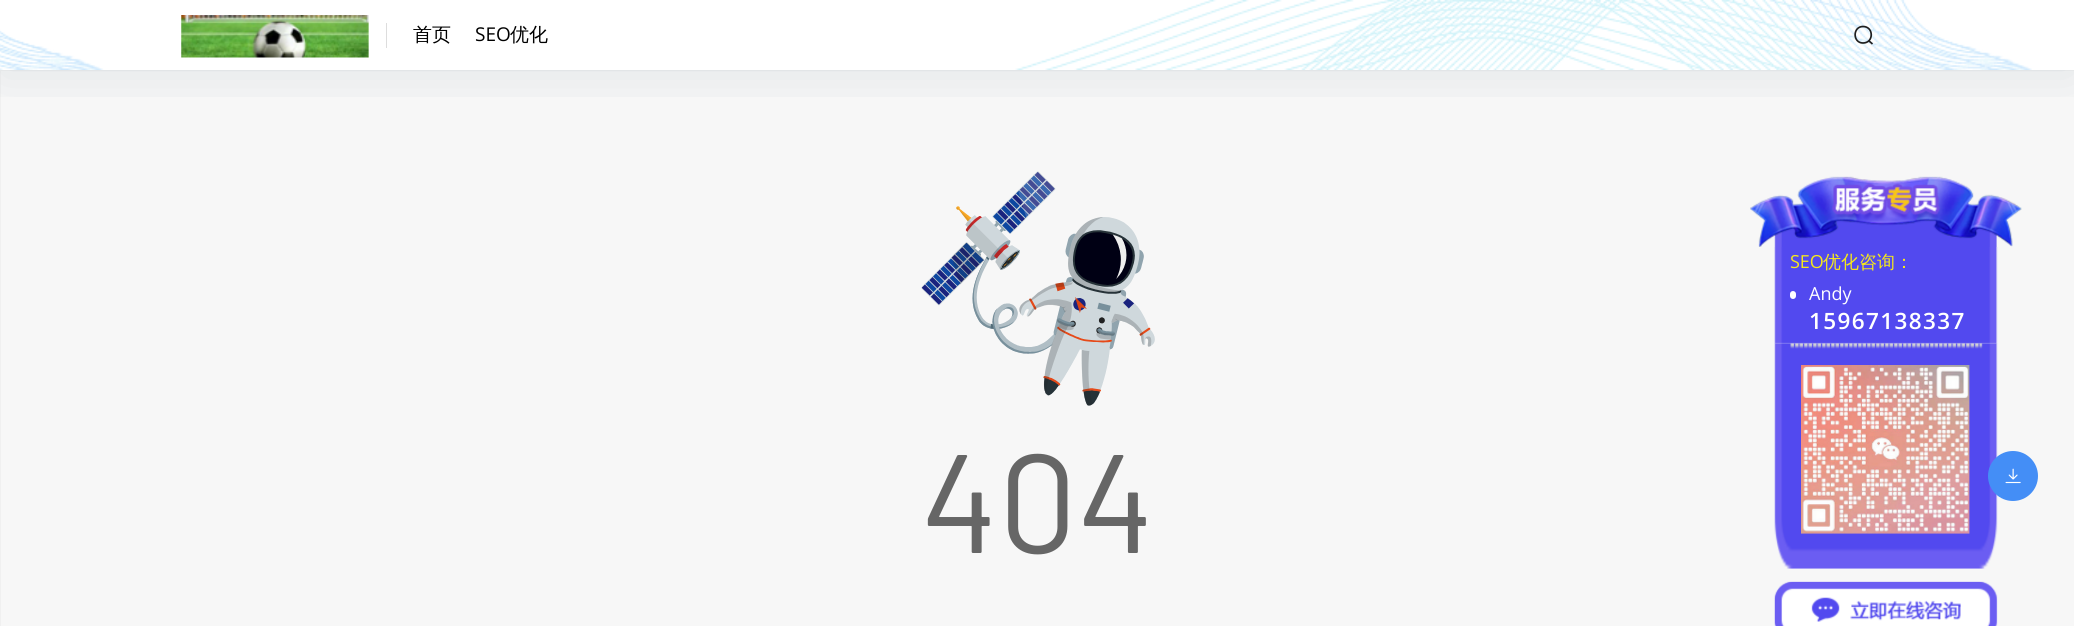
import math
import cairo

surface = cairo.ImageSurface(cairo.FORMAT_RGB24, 2074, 626)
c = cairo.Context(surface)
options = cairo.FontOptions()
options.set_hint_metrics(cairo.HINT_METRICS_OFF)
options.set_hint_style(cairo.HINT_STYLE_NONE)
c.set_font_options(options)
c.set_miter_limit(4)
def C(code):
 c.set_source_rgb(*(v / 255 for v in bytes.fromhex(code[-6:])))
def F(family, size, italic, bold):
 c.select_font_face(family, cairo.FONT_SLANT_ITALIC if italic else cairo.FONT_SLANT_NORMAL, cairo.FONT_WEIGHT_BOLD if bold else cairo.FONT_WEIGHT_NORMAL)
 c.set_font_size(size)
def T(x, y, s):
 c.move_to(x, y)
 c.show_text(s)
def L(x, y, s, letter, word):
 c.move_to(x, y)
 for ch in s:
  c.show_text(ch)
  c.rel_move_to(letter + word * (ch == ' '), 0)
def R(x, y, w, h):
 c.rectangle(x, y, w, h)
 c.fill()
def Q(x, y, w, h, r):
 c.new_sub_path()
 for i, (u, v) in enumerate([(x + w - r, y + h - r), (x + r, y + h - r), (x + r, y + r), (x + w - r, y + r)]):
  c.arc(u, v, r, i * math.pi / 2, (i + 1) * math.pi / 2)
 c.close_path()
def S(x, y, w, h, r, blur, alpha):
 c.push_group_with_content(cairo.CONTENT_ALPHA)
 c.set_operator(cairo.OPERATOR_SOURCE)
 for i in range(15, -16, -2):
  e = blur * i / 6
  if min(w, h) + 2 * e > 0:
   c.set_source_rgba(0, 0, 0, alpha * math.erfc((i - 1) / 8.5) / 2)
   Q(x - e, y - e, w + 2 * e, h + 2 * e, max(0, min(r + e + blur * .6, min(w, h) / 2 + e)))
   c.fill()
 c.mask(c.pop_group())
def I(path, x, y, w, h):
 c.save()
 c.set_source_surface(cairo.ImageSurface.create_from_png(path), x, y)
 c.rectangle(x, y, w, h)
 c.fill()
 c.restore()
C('ffffff')
c.paint()
C('f7f7f7')
c.rectangle(.5,70.5,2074,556)
c.fill_preserve()
C('f0f0f0')
c.set_line_width(1)
c.stroke()
c.save()
c.rectangle(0,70,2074,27)
c.clip()
C('113a5d')
S(0,6,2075,70,0,25,.1)
c.restore()
I('1.png',0,0,2032,70)
I('2.png',181,15,188,43)
C('dddddd')
R(386,23,1,25)
F('WenQuanYi Zen Hei Medium',19,0,0)
C('000000')
T(413,41,'首页')
F('Open Sans',19,0,0)
T(475,41,'SEO')
F('WenQuanYi Zen Hei Medium',19,0,0)
T(510,41,'优化')
c.new_path()
c.move_to(1863,43)
c.curve_to(1874,43,1874,26.5,1863,26.5)
c.curve_to(1852.5,26.5,1852.5,43,1863,43)
c.close_path()
c.move_to(1868.5,40.5)
c.line_to(1872.5,44)
C('1f1f1f')
c.set_line_width(1.7)
c.set_line_join(cairo.LINE_JOIN_ROUND)
c.stroke()
I('3.png',1750,176,272,71)
I('4.png',1774,247,224,97)
F('Open Sans',18,0,0)
C('f6e919')
T(1790,268,'SEO')
F('WenQuanYi Zen Hei Medium',18,0,0)
T(1823,268,'优化咨询：')
C('ffffff')
Q(1790,291,6,8,3)
c.fill()
F('Open Sans',18,0,0)
T(1809,300,'Andy')
F('Open Sans SemiBold',22.5,0,0)
L(1809,329,'15967138337',1.4,0)
I('5.png',1774,343,224,226)
I('6.png',1801,365,169,169)
I('7.png',1774,581,224,45)
I('8.png',1775,582,222,44)
I('9.png',921,171,234,235)
F('Barlow',140,0,0)
C('666666')
T(921,553,'404')
C('448ef6')
c.new_path()
c.arc(2013,476,25,0,2 * math.pi)
c.fill()
I('10.png',2005,468,16,16)
surface.write_to_png('o.png')
